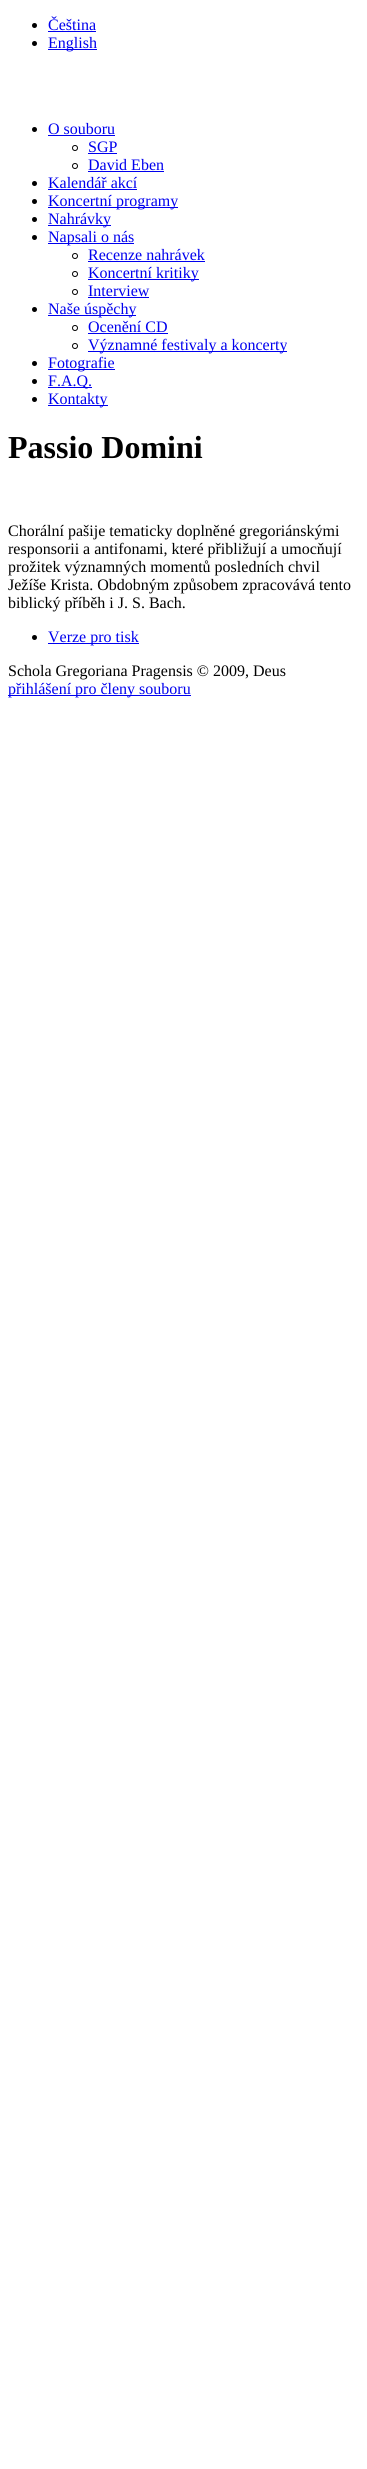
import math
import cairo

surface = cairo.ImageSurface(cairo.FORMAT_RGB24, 367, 2469)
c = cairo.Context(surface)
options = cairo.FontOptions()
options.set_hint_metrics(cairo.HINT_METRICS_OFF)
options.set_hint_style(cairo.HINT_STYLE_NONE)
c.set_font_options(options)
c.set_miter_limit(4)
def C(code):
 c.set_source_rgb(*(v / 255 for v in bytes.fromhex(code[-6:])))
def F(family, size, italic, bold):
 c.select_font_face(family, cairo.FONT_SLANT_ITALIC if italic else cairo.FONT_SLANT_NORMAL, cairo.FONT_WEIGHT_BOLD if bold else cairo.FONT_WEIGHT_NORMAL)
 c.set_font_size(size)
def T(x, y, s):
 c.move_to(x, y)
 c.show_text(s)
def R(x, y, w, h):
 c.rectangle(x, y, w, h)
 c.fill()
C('ffffff')
c.paint()
C('000000')
c.arc(34.5,25.5,2.5,0,2 * math.pi)
c.fill()
F('Liberation Serif',16,0,0)
C('0000ee')
T(48,30,'Čeština')
R(48,31,48,1)
C('000000')
c.new_path()
c.arc(34.5,43.5,2.5,0,2 * math.pi)
c.fill()
C('0000ee')
R(48,49,49,1)
T(48,48,'English')
C('000000')
c.new_path()
c.arc(34.5,129.5,2.5,0,2 * math.pi)
c.fill()
C('0000ee')
T(48,134,'O souboru')
R(48,135,67,1)
c.new_path()
c.arc(75,148,2.5,0,2 * math.pi)
C('000000')
c.set_line_width(1)
c.stroke()
C('0000ee')
T(88,152,'SGP')
R(88,153,29,1)
c.new_path()
c.arc(75,166,2.5,0,2 * math.pi)
C('000000')
c.stroke()
C('0000ee')
T(88,170,'David Eben')
R(88,171,76,1)
C('000000')
c.new_path()
c.arc(34.5,183.5,2.5,0,2 * math.pi)
c.fill()
C('0000ee')
T(48,188,'Kalendář akcí')
R(48,189,89,1)
C('000000')
c.new_path()
c.arc(34.5,201.5,2.5,0,2 * math.pi)
c.fill()
C('0000ee')
R(48,207,130,1)
T(48,206,'Koncertní programy')
C('000000')
c.new_path()
c.arc(34.5,219.5,2.5,0,2 * math.pi)
c.fill()
C('0000ee')
R(48,225,63,1)
T(48,224,'Nahrávky')
C('000000')
c.new_path()
c.arc(34.5,237.5,2.5,0,2 * math.pi)
c.fill()
C('0000ee')
R(48,243,86,1)
T(48,242,'Napsali o nás')
c.new_path()
c.arc(75,256,2.5,0,2 * math.pi)
C('000000')
c.stroke()
C('0000ee')
T(88,260,'Recenze nahrávek')
R(88,261,117,1)
c.new_path()
c.arc(75,274,2.5,0,2 * math.pi)
C('000000')
c.stroke()
C('0000ee')
R(88,279,111,1)
T(88,278,'Koncertní kritiky')
c.new_path()
c.arc(75,292,2.5,0,2 * math.pi)
C('000000')
c.stroke()
C('0000ee')
T(88,296,'Interview')
R(88,297,61,1)
C('000000')
c.new_path()
c.arc(34.5,309.5,2.5,0,2 * math.pi)
c.fill()
C('0000ee')
R(48,315,88,1)
T(48,314,'Naše úspěchy')
c.new_path()
c.arc(75,328,2.5,0,2 * math.pi)
C('000000')
c.stroke()
C('0000ee')
T(88,332,'Ocenění CD')
R(88,333,80,1)
c.new_path()
c.arc(75,346,2.5,0,2 * math.pi)
C('000000')
c.stroke()
C('0000ee')
R(88,351,199,1)
T(88,350,'Významné festivaly a koncerty')
C('000000')
c.new_path()
c.arc(34.5,363.5,2.5,0,2 * math.pi)
c.fill()
C('0000ee')
R(48,369,67,1)
T(48,368,'Fotografie')
C('000000')
c.new_path()
c.arc(34.5,381.5,2.5,0,2 * math.pi)
c.fill()
C('0000ee')
R(48,387,44,1)
T(48,386,'F.A.Q.')
C('000000')
c.new_path()
c.arc(34.5,399.5,2.5,0,2 * math.pi)
c.fill()
C('0000ee')
R(48,405,60,1)
T(48,404,'Kontakty')
F('Liberation Serif',32,0,1)
C('000000')
T(8,458,'Passio Domini')
F('Liberation Serif',16,0,0)
T(8,536,'Chorální pašije tematicky doplněné gregoriánskými')
T(8,554,'responsorii a antifonami, které přibližují a umocňují')
T(8,572,'prožitek významných momentů posledních chvil')
T(8,590,'Ježíše Krista. Obdobným způsobem zpracovává tento')
T(8,608,'biblický příběh i J. S. Bach.')
c.new_path()
c.arc(34.5,637.5,2.5,0,2 * math.pi)
c.fill()
C('0000ee')
R(48,643,91,1)
T(48,642,'Verze pro tisk')
C('000000')
T(8,676,'Schola Gregoriana Pragensis © 2009, Deus')
C('0000ee')
R(8,695,183,1)
T(8,694,'přihlášení pro členy souboru')
surface.write_to_png('o.png')
